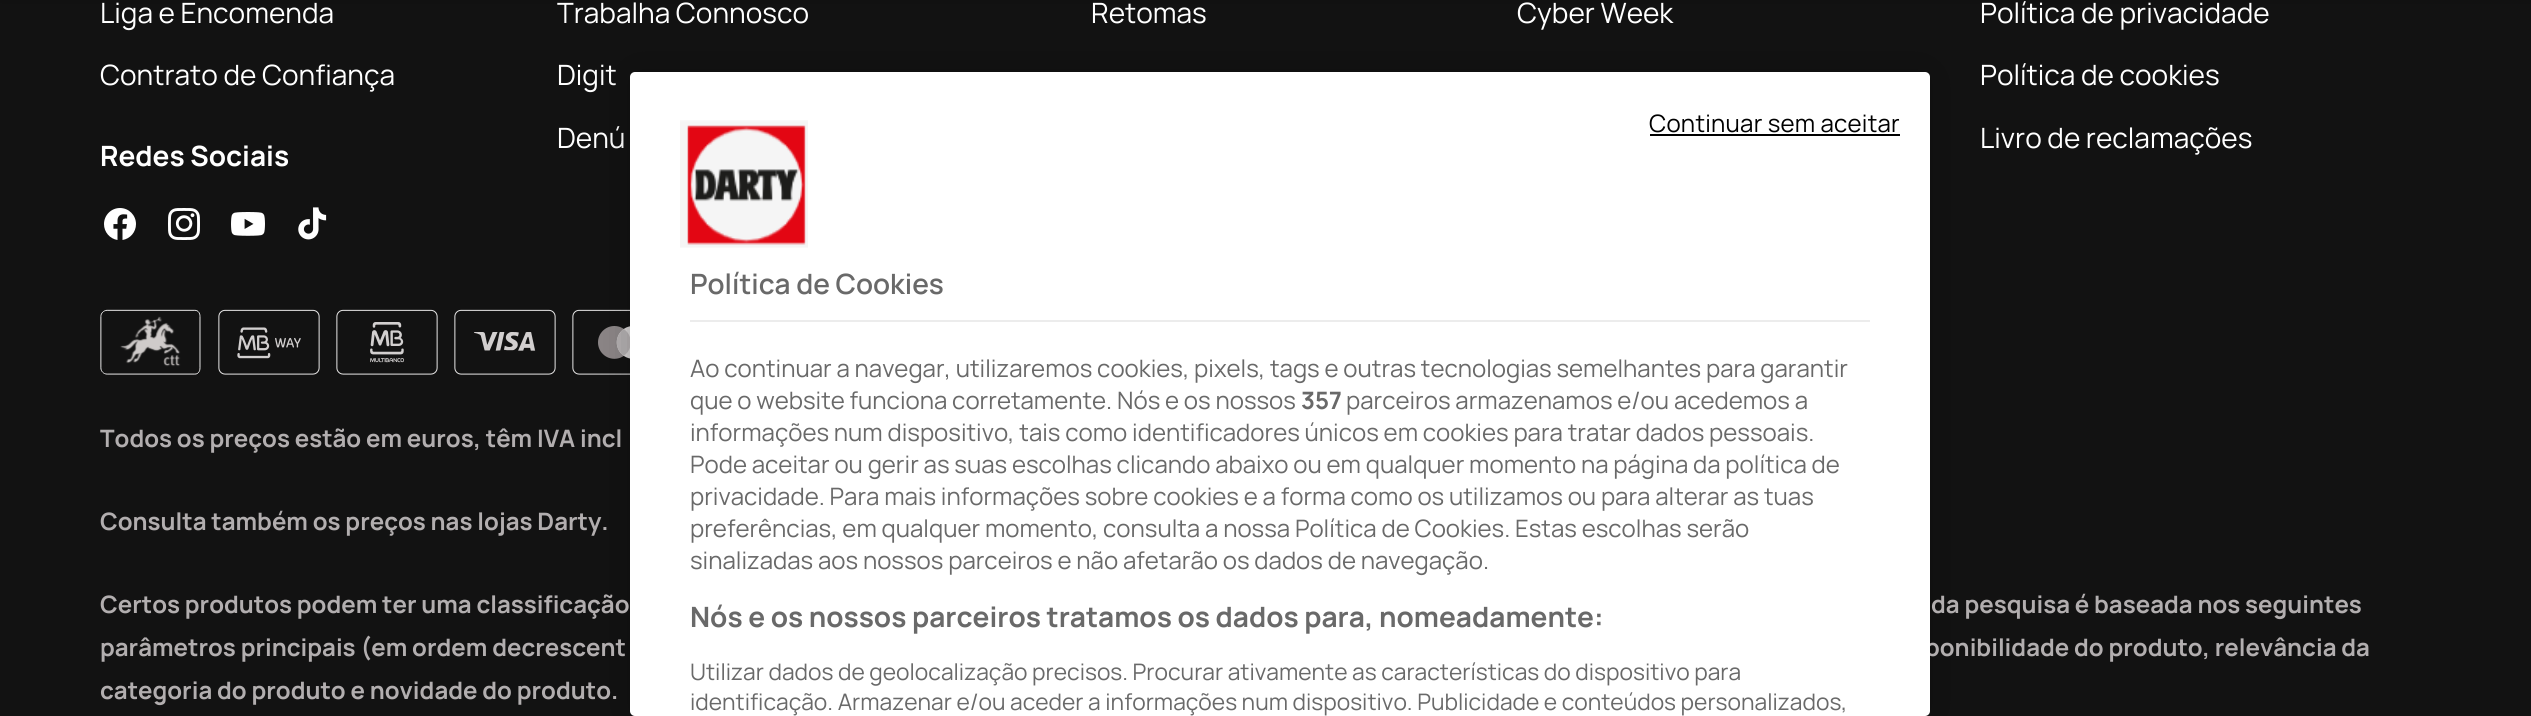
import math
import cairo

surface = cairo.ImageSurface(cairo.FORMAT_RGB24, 2531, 716)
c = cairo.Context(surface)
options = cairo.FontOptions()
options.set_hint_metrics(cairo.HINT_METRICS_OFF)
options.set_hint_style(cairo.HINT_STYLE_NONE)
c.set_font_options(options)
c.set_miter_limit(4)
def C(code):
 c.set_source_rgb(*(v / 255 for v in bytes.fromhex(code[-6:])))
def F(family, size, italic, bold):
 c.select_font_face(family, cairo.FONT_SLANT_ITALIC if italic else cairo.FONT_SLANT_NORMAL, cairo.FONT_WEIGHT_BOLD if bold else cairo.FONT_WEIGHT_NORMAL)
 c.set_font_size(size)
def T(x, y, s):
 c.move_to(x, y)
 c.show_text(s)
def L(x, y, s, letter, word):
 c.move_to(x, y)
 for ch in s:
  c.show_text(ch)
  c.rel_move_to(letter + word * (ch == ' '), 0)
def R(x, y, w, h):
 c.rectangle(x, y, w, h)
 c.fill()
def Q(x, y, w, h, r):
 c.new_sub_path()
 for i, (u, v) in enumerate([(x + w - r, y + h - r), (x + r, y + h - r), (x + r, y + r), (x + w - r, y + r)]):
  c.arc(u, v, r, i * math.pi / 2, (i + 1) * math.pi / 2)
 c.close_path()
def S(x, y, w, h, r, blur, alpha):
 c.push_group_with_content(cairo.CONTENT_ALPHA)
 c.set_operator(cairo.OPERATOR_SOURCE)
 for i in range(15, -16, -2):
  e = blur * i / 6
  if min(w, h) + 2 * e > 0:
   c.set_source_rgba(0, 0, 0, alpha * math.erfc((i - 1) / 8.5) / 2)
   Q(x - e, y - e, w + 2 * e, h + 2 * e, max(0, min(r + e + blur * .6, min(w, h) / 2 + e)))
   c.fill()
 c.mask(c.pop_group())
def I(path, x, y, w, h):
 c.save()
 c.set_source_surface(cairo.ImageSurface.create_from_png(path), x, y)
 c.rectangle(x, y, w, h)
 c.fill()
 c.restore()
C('121212')
c.paint()
C('000000')
S(0,-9,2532,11,0,3,.1)
F('Manrope',28,0,0)
C('ffffff')
T(100,23,'Liga e Encomenda')
T(100,85,'Contrato de Confiança')
F('Manrope',28,0,1)
T(100,166,'Redes Sociais')
I('1.png',104,208,32,32)
I('2.png',168,208,32,32)
I('3.png',231,212,34,24)
I('4.png',298,207,29,33)
F('Manrope',28,0,0)
T(557,23,'Trabalha Connosco')
T(557,85,'Digit')
T(557,148,'Denú')
T(1091,23,'Retomas')
T(1517,23,'Cyber Week')
T(1980,23,'Política de privacidade')
T(1980,85,'Política de cookies')
T(1980,148,'Livro de reclamações')
I('10.png',572,309,58,66)
C('000000')
S(630,72,1300,644,5,18,.2)
F('Manrope',24,0,1)
C('b2aeaf')
T(1925,656,'ponibilidade do produto, relevância da')
C('ffffff')
Q(630,72,1300,644,5)
c.fill()
F('Manrope',24,0,0)
C('000000')
L(1649,132,'Continuar sem aceitar',.25,0)
R(1650,134,250,2)
I('5.png',680,120,128,128)
F('Manrope SemiBold',28,0,0)
C('696969')
T(690,294,'Política de Cookies')
C('ececec')
R(690,320,1180,2)
F('Manrope',24,0,0)
C('696969')
T(690,377,'Ao continuar a navegar, utilizaremos cookies, pixels, tags e outras tecnologias semelhantes para garantir')
T(690,409,'que o website funciona corretamente. Nós e os nossos')
F('Manrope',24,0,1)
T(1301,409,'357')
F('Manrope',24,0,0)
T(1346,409,'parceiros armazenamos e/ou acedemos a')
T(690,441,'informações num dispositivo, tais como identificadores únicos em cookies para tratar dados pessoais.')
T(690,473,'Pode aceitar ou gerir as suas escolhas clicando abaixo ou em qualquer momento na página da política de')
T(690,505,'privacidade. Para mais informações sobre cookies e a forma como os utilizamos ou para alterar as tuas')
T(690,537,'preferências, em qualquer momento, consulta a nossa Política de Cookies. Estas escolhas serão')
T(690,569,'sinalizadas aos nossos parceiros e não afetarão os dados de navegação.')
F('Manrope',28,0,1)
T(690,627,'Nós e os nossos parceiros tratamos os dados para, nomeadamente:')
F('Manrope',22.75,0,0)
T(690,680,'Utilizar dados de geolocalização precisos. Procurar ativamente as características do dispositivo para')
T(690,710,'identificação. Armazenar e/ou aceder a informações num dispositivo. Publicidade e conteúdos personalizados,')
I('6.png',100,309,101,66)
I('7.png',218,309,102,66)
I('8.png',336,309,102,66)
I('9.png',454,309,102,66)
F('Manrope',24,0,1)
C('b2aeaf')
T(100,447,'Todos os preços estão em euros, têm IVA incl')
T(100,530,'Consulta também os preços nas lojas Darty.')
T(100,613,'Certos produtos podem ter uma classificação')
T(1931,613,'da pesquisa é baseada nos seguintes')
T(100,656,'parâmetros principais (em ordem decrescent')
T(100,699,'categoria do produto e novidade do produto.')
surface.write_to_png('o.png')
